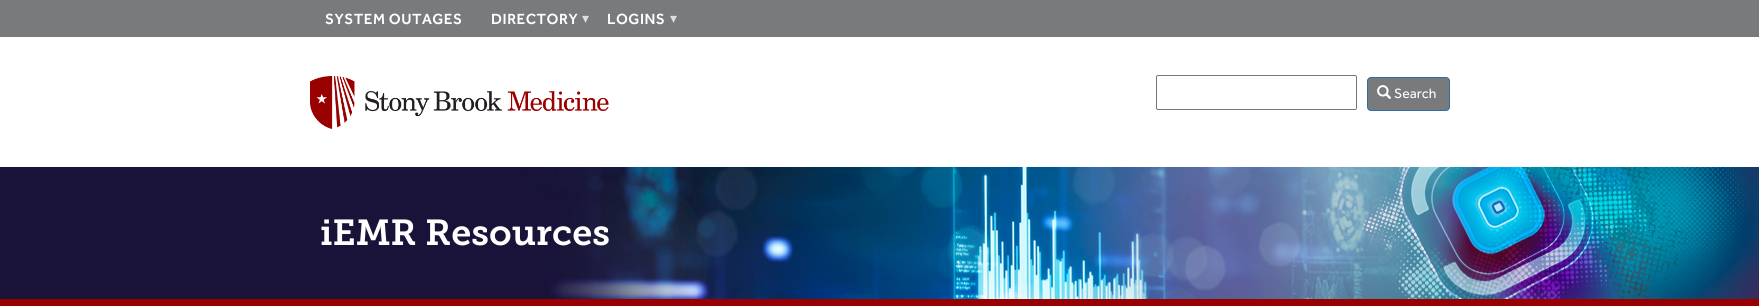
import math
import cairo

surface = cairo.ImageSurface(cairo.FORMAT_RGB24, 1759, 306)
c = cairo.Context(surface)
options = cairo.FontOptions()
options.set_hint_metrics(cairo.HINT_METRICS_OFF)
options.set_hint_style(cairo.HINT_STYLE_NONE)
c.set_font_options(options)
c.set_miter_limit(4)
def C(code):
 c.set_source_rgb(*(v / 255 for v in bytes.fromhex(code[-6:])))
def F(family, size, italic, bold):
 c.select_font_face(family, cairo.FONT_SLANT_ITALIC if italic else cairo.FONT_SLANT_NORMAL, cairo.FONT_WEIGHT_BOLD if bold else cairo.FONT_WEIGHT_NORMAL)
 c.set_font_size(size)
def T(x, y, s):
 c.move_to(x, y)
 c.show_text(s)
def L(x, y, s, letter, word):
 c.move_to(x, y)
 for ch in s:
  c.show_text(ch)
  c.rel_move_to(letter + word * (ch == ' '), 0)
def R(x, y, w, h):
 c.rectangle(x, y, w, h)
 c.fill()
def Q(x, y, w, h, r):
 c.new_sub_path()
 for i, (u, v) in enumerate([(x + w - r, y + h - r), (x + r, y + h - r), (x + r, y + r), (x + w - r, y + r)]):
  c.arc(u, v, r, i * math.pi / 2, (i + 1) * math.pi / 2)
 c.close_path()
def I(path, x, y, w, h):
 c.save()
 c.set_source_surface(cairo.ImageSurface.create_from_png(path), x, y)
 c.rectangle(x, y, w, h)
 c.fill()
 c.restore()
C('ffffff')
c.paint()
C('787a7c')
R(0,0,1759,37)
F('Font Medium',15.25,0,0)
C('ffffff')
L(325,24,'SYSTEM OUTAGES',.5,0)
L(491,24,'DIRECTORY',.5,0)
F('DejaVu Sans',14,0,0)
C('dddede')
T(582,23,'▾')
F('Font Medium',15.25,0,0)
C('ffffff')
L(607,24,'LOGINS',.5,0)
F('DejaVu Sans',14,0,0)
C('dddede')
T(670,23,'▾')
I('1.png',310,76,299,53)
Q(1156.5,75.5,200,34,1.5)
C('767676')
c.set_line_width(1)
c.stroke()
C('787a7c')
Q(1367.5,77.5,82,33,3.5)
c.fill_preserve()
C('2e6da4')
c.stroke()
I('2.png',1377,85,14,14)
F('Font',14,0,0)
C('ffffff')
T(1394,98,'Search')
I('3.png',0,167,1759,132)
F('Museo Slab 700 SemiBold',36,0,0)
T(320,245,'iEMR Resources')
C('990000')
R(0,299,1759,7)
surface.write_to_png('o.png')
